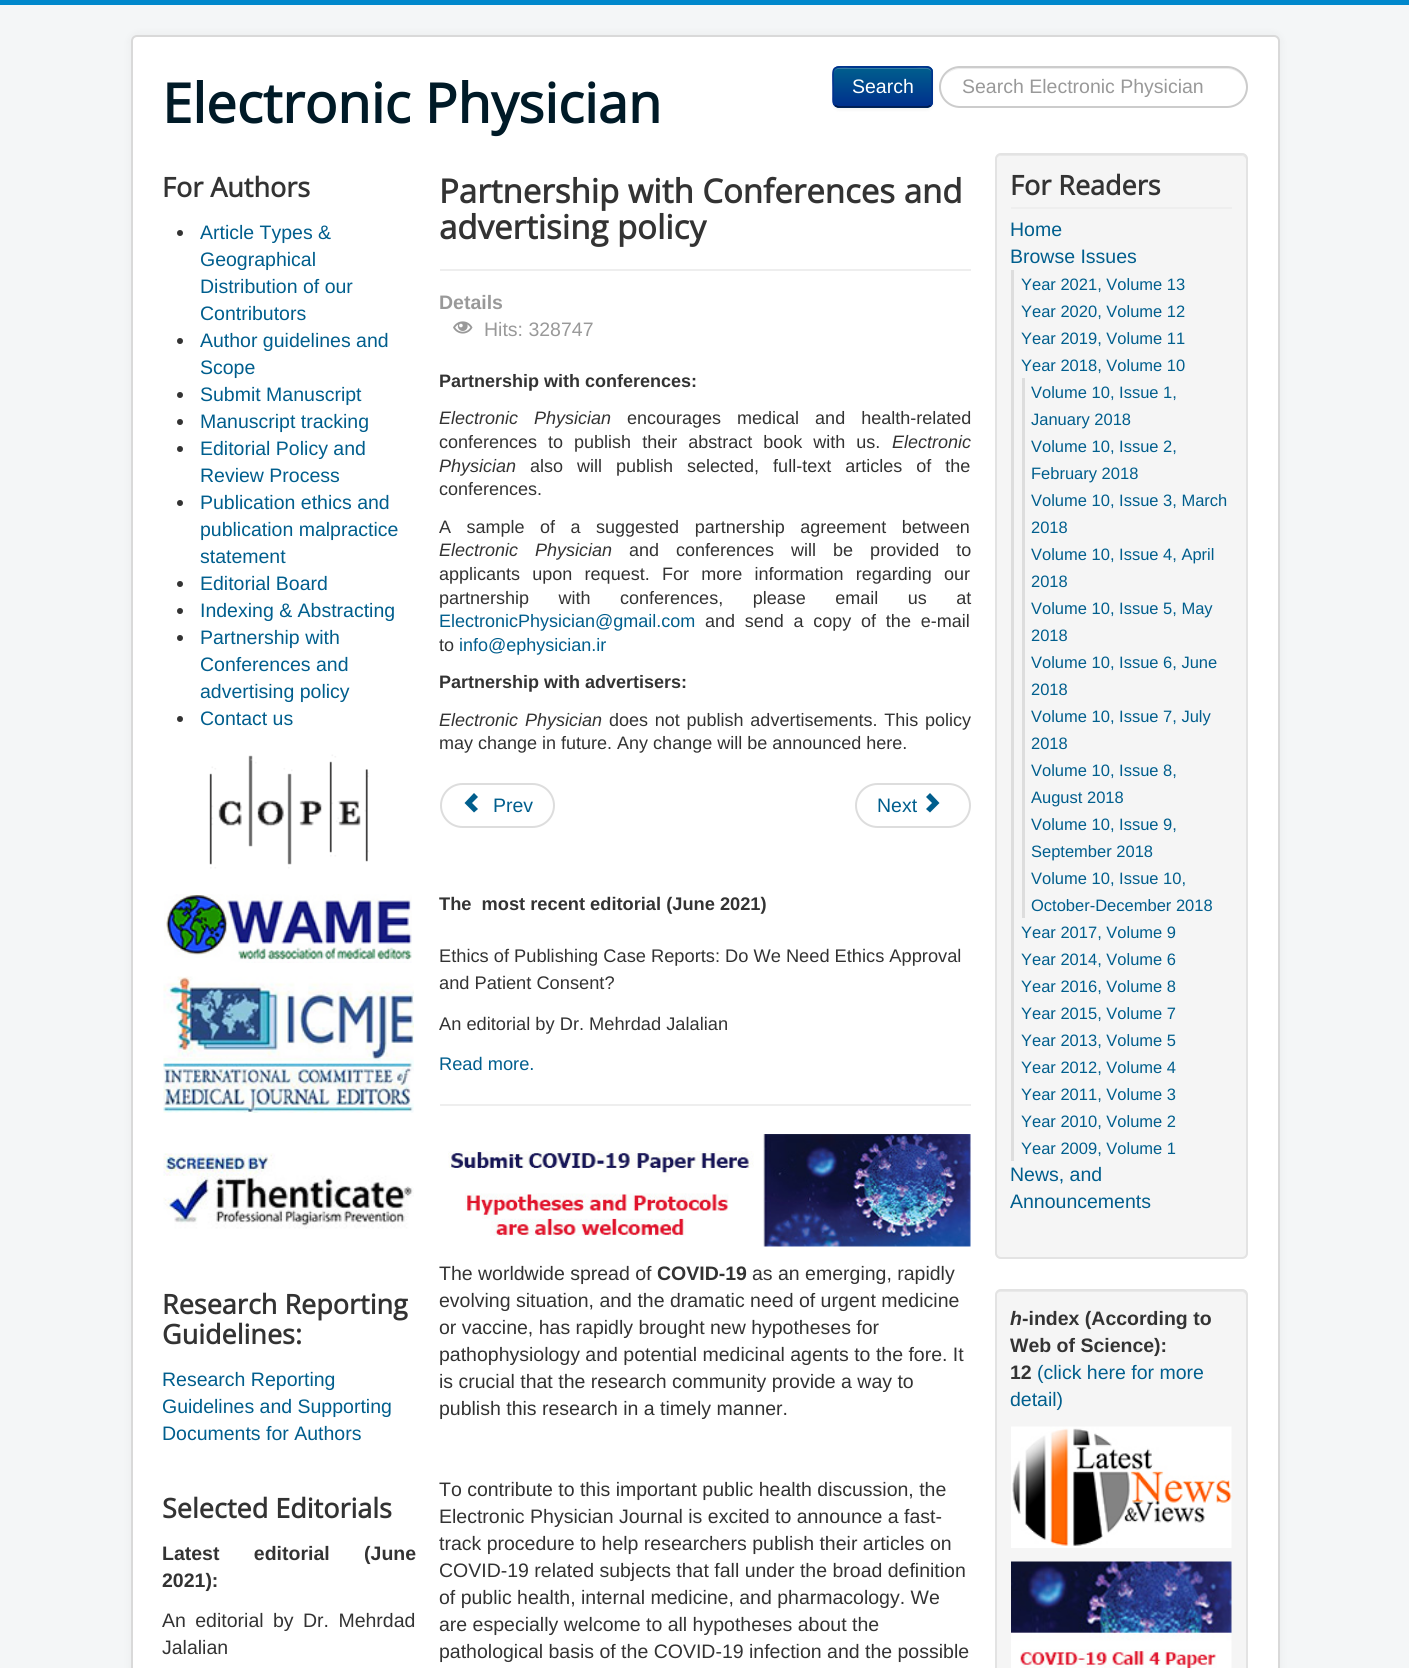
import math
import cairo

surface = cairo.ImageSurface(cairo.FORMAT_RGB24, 1409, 1668)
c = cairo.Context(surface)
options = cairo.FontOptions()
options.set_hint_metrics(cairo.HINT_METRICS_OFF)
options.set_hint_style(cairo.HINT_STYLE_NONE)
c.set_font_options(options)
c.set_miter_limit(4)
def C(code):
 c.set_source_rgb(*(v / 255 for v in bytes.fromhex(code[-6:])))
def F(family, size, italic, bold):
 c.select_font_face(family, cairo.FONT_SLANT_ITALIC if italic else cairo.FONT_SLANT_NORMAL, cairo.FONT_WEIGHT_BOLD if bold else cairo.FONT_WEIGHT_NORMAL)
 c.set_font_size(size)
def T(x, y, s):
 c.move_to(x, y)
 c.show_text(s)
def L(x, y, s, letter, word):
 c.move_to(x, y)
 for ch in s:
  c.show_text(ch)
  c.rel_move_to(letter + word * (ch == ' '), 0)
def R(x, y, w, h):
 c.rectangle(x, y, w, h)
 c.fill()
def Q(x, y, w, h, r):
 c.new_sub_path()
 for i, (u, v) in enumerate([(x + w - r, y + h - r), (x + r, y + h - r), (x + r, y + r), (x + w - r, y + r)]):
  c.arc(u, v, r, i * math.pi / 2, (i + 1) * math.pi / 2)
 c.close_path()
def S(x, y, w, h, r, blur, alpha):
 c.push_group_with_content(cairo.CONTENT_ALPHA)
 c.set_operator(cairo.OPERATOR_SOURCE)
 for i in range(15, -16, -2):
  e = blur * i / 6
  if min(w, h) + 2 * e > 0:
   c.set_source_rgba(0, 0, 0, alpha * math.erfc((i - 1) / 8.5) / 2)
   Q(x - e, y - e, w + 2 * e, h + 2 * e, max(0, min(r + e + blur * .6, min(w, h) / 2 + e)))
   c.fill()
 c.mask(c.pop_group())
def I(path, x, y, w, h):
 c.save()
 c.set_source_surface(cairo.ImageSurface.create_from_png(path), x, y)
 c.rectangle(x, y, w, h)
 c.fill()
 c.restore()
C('f4f6f7')
c.paint()
C('0088cc')
R(0,0,1409,5)
C('000000')
S(131,35,1149,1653,6,4.5,.05)
C('ffffff')
Q(131,35,1149,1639,6)
c.fill()
Q(132,36,1147,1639,5)
c.set_source_rgba(0,0,0,0.15)
c.stroke()
F('Open Sans',54.5,0,1)
C('001a27')
T(162,123,'Electronic Physician')
C('000000')
S(833,68,100,42,6,1.5,.05)
C('004b8d')
Q(833,66,100,42,6)
c.fill()
c.save()
Q(833,66,100,42,6)
c.clip()
gradient = cairo.LinearGradient(883,68,883,107)
gradient.add_color_stop_rgba(0,0,0.369,0.553,1)
gradient.add_color_stop_rgba(1,0,0.184,0.553,1)
c.set_source(gradient)
R(833,68,100,39)
c.restore()
c.set_source_rgba(1,1,1,0.2)
c.new_path()
c.move_to(838,69)
c.line_to(927,69)
c.curve_to(929,69,932,71,932,74)
c.curve_to(932,64,918,68,912,68)
c.line_to(854,68)
c.curve_to(848,68,834,64,834,74)
c.curve_to(834,71,836,69,838,69)
c.close_path()
c.fill()
c.new_path()
c.move_to(930.5,105.5)
c.line_to(927.5,107)
c.line_to(838,107)
c.line_to(835,105.5)
C('001641')
c.set_line_width(1.5)
c.stroke()
c.new_path()
c.move_to(835,105.5)
c.curve_to(832.5,103.5,833,100,833,97)
c.line_to(833,87)
c.curve_to(833,64.5,830,67,853,67)
c.line_to(912,67)
c.curve_to(935.5,67,932,64.5,932,87)
c.line_to(932,97)
c.curve_to(932,100,933,103.5,930.5,105.5)
C('002f8d')
c.stroke()
F('Liberation Sans',19.5,0,0)
C('ffffff')
T(852,93,'Search')
C('ececec')
c.new_path()
c.move_to(960,69)
c.line_to(1227,69)
c.curve_to(1238,69,1246,78,1246,88)
c.curve_to(1246,93,1244,97,1242,101)
c.curve_to(1245,97,1247,93,1247,88)
c.curve_to(1247,77,1238,68,1228,68)
c.line_to(960,68)
c.curve_to(954,68,949,71,945,76)
c.curve_to(949,72,954,69,960,69)
c.close_path()
c.fill()
Q(940,67,307,40,20)
C('cccccc')
c.set_line_width(2)
c.stroke()
C('999999')
T(962,93,'Search Electronic Physician')
F('Open Sans',27,0,1)
C('333333')
T(162,197,'For Authors')
c.new_path()
c.arc(180,233,3,0,2 * math.pi)
c.fill()
F('Liberation Sans',19.5,0,0)
C('005e8d')
T(200,239,'Article Types &')
T(200,266,'Geographical')
T(200,293,'Distribution of our')
T(200,320,'Contributors')
C('333333')
c.new_path()
c.arc(180,341,3,0,2 * math.pi)
c.fill()
C('005e8d')
T(200,347,'Author guidelines and')
T(200,374,'Scope')
C('333333')
c.new_path()
c.arc(180,395,3,0,2 * math.pi)
c.fill()
C('005e8d')
T(200,401,'Submit Manuscript')
C('333333')
c.new_path()
c.arc(180,422,3,0,2 * math.pi)
c.fill()
C('005e8d')
T(200,428,'Manuscript tracking')
C('333333')
c.new_path()
c.arc(180,449,3,0,2 * math.pi)
c.fill()
C('005e8d')
T(200,455,'Editorial Policy and')
T(200,482,'Review Process')
C('333333')
c.new_path()
c.arc(180,503,3,0,2 * math.pi)
c.fill()
C('005e8d')
T(200,509,'Publication ethics and')
T(200,536,'publication malpractice')
T(200,563,'statement')
C('333333')
c.new_path()
c.arc(180,584,3,0,2 * math.pi)
c.fill()
C('005e8d')
T(200,590,'Editorial Board')
C('333333')
c.new_path()
c.arc(180,611,3,0,2 * math.pi)
c.fill()
C('005e8d')
T(200,617,'Indexing & Abstracting')
C('333333')
c.new_path()
c.arc(180,638,3,0,2 * math.pi)
c.fill()
C('005e8d')
T(200,644,'Partnership with')
T(200,671,'Conferences and')
T(200,698,'advertising policy')
C('333333')
c.new_path()
c.arc(180,719,3,0,2 * math.pi)
c.fill()
C('005e8d')
T(200,725,'Contact us')
I('1.png',209,754,160,115)
I('2.png',164,894,248,69)
I('3.png',163,976,251,137)
I('4.png',163,1153,251,76)
F('Open Sans',27,0,1)
C('333333')
T(162,1314,'Research Reporting')
T(162,1344,'Guidelines:')
F('Liberation Sans',19.5,0,0)
C('005e8d')
T(162,1386,'Research Reporting')
T(162,1413,'Guidelines and Supporting')
T(162,1440,'Documents for Authors')
F('Open Sans',27,0,1)
C('333333')
T(162,1518,'Selected Editorials')
F('Liberation Sans',19.5,0,1)
L(162,1560,'Latest editorial (June',0,29)
T(162,1587,'2021):')
F('Liberation Sans',19.5,0,0)
L(162,1627,'An editorial by Dr. Mehrdad',0,4)
T(162,1654,'Jalalian')
C('eeeeee')
R(440,269,531,2)
F('Open Sans',33,0,1)
C('333333')
T(439,203,'Partnership with Conferences and')
T(439,239,'advertising policy')
F('Liberation Sans',19.5,0,1)
C('999999')
T(439,309,'Details')
I('5.png',453,321,20,13)
F('Liberation Sans',19.5,0,0)
T(484,336,'Hits: 328747')
F('Liberation Sans',18,0,1)
C('333333')
T(439,387,'Partnership with conferences:')
F('Liberation Sans',18,1,0)
L(439,424,'Electronic Physician',0,11)
F('Liberation Sans',18,0,0)
L(627,424,'encourages medical and health-related',0,11)
L(439,448,'conferences to publish their abstract book with us.',0,6)
F('Liberation Sans',18,1,0)
T(892,448,'Electronic')
T(439,472,'Physician')
F('Liberation Sans',18,0,0)
L(530,472,'also will publish selected, full-text articles of the',0,9)
T(439,495,'conferences.')
L(439,533,'A sample of a suggested partnership agreement between',0,10.5)
F('Liberation Sans',18,1,0)
L(439,556,'Electronic Physician',0,12)
F('Liberation Sans',18,0,0)
L(629,556,'and conferences will be provided to',0,12)
L(439,580,'applicants upon request. For more information regarding our',0,7.25)
L(439,604,'partnership with conferences, please email us at',0,24.5)
C('005e8d')
T(439,627,'ElectronicPhysician@gmail.com')
C('333333')
L(705,627,'and send a copy of the e-mail',0,4.75)
T(439,651,'to')
C('005e8d')
T(459,651,'info@ephysician.ir')
F('Liberation Sans',18,0,1)
C('333333')
T(439,688,'Partnership with advertisers:')
F('Liberation Sans',18,1,0)
L(439,726,'Electronic Physician',0,2)
F('Liberation Sans',18,0,0)
L(609,726,'does not publish advertisements. This policy',0,1.75)
T(439,749,'may change in future. Any change will be announced here.')
Q(441,784,113,43,21.5)
C('dddddd')
c.stroke()
C('005e8d')
c.new_path()
c.move_to(474,812.5)
c.line_to(464.5,803)
c.line_to(474,793)
c.line_to(478,797)
c.line_to(472,803)
c.line_to(478,809)
c.close_path()
c.fill()
F('Liberation Sans',19.5,0,0)
T(493,812,'Prev')
Q(856,784,114,43,21.5)
C('dddddd')
c.stroke()
C('005e8d')
T(877,812,'Next')
c.new_path()
c.move_to(930,793)
c.line_to(939.5,803)
c.line_to(930,812.5)
c.line_to(926,809)
c.line_to(932,803)
c.line_to(926,797)
c.close_path()
c.fill()
F('Liberation Sans',18.25,0,1)
C('333333')
T(439,910,'The  most recent editorial (June 2021)')
F('Liberation Sans',18.25,0,0)
T(439,962,'Ethics of Publishing Case Reports: Do We Need Ethics Approval')
T(439,989,'and Patient Consent?')
T(439,1030,'An editorial by Dr. Mehrdad Jalalian')
C('005e8d')
T(439,1070,'Read more.')
C('eeeeee')
R(440,1104,531,2)
I('6.png',448,1134,523,113)
F('Liberation Sans',19.5,0,0)
C('333333')
T(439,1280,'The worldwide spread of')
F('Liberation Sans',19.5,0,1)
T(657,1280,'COVID-19')
F('Liberation Sans',19.5,0,0)
T(752,1280,'as an emerging, rapidly')
T(439,1307,'evolving situation, and the dramatic need of urgent medicine')
T(439,1334,'or vaccine, has rapidly brought new hypotheses for')
T(439,1361,'pathophysiology and potential medicinal agents to the fore. It')
T(439,1388,'is crucial that the research community provide a way to')
T(439,1415,'publish this research in a timely manner.')
T(439,1496,'To contribute to this important public health discussion, the')
T(439,1523,'Electronic Physician Journal is excited to announce a fast-')
T(439,1550,'track procedure to help researchers publish their articles on')
T(439,1577,'COVID-19 related subjects that fall under the broad definition')
T(439,1604,'of public health, internal medicine, and pharmacology. We')
T(439,1631,'are especially welcome to all hypotheses about the')
T(439,1658,'pathological basis of the COVID-19 infection and the possible')
C('f5f5f5')
Q(995,153,253,1106,6)
c.fill()
C('e9e9e9')
c.new_path()
c.move_to(1000,156)
c.line_to(1242,156)
c.curve_to(1244,156,1246,158,1246,160)
c.line_to(1246,1255)
c.curve_to(1247,1254,1247,1253,1247,1252)
c.line_to(1247,160)
c.curve_to(1247,157,1245,155,1242,155)
c.line_to(1001,155)
c.curve_to(998,155,996,157,996,160)
c.curve_to(996,158,998,156,1000,156)
c.close_path()
c.fill()
Q(996,154,251,1104,5)
C('e3e3e3')
c.stroke()
C('eeeeee')
R(1011,207,221,2)
F('Open Sans',27,0,1)
C('333333')
T(1010,195,'For Readers')
F('Liberation Sans',19.5,0,0)
C('005e8d')
T(1010,236,'Home')
T(1010,263,'Browse Issues')
C('dddddd')
R(1011,270,3,891)
F('Liberation Sans',16.5,0,0)
C('005e8d')
T(1021,290,'Year 2021, Volume 13')
T(1021,317,'Year 2020, Volume 12')
T(1021,344,'Year 2019, Volume 11')
T(1021,371,'Year 2018, Volume 10')
C('dddddd')
R(1022,378,3,540)
C('005e8d')
T(1031,398,'Volume 10, Issue 1,')
T(1031,425,'January 2018')
T(1031,452,'Volume 10, Issue 2,')
T(1031,479,'February 2018')
T(1031,506,'Volume 10, Issue 3, March')
T(1031,533,'2018')
T(1031,560,'Volume 10, Issue 4, April')
T(1031,587,'2018')
T(1031,614,'Volume 10, Issue 5, May')
T(1031,641,'2018')
T(1031,668,'Volume 10, Issue 6, June')
T(1031,695,'2018')
T(1031,722,'Volume 10, Issue 7, July')
T(1031,749,'2018')
T(1031,776,'Volume 10, Issue 8,')
T(1031,803,'August 2018')
T(1031,830,'Volume 10, Issue 9,')
T(1031,857,'September 2018')
T(1031,884,'Volume 10, Issue 10,')
T(1031,911,'October-December 2018')
T(1021,938,'Year 2017, Volume 9')
T(1021,965,'Year 2014, Volume 6')
T(1021,992,'Year 2016, Volume 8')
T(1021,1019,'Year 2015, Volume 7')
T(1021,1046,'Year 2013, Volume 5')
T(1021,1073,'Year 2012, Volume 4')
T(1021,1100,'Year 2011, Volume 3')
T(1021,1127,'Year 2010, Volume 2')
T(1021,1154,'Year 2009, Volume 1')
F('Liberation Sans',19.5,0,0)
T(1010,1181,'News, and')
T(1010,1208,'Announcements')
C('f5f5f5')
Q(995,1289,253,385,6)
c.fill()
C('e9e9e9')
c.new_path()
c.move_to(1000,1292)
c.line_to(1242,1292)
c.curve_to(1244,1292,1246,1294,1246,1296)
c.line_to(1246,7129)
c.curve_to(1247,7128,1247,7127,1247,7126)
c.line_to(1247,1295)
c.curve_to(1247,1292,1245,1290,1242,1290)
c.line_to(1001,1290)
c.curve_to(998,1290,996,1292,996,1295)
c.line_to(996,1296)
c.curve_to(996,1294,998,1292,1000,1292)
c.close_path()
c.fill()
Q(996,1290,251,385,5)
C('e3e3e3')
c.stroke()
F('Liberation Sans',19.5,1,1)
C('333333')
T(1010,1325,'h')
F('Liberation Sans',19.5,0,1)
T(1022,1325,'-index (According to')
T(1010,1352,'Web of Science):')
T(1010,1379,'12')
F('Liberation Sans',19.5,0,0)
C('005e8d')
T(1037,1379,'(click here for more')
T(1010,1406,'detail)')
I('7.png',1011,1426,221,122)
I('8.png',1011,1561,221,107)
surface.write_to_png('o.png')
